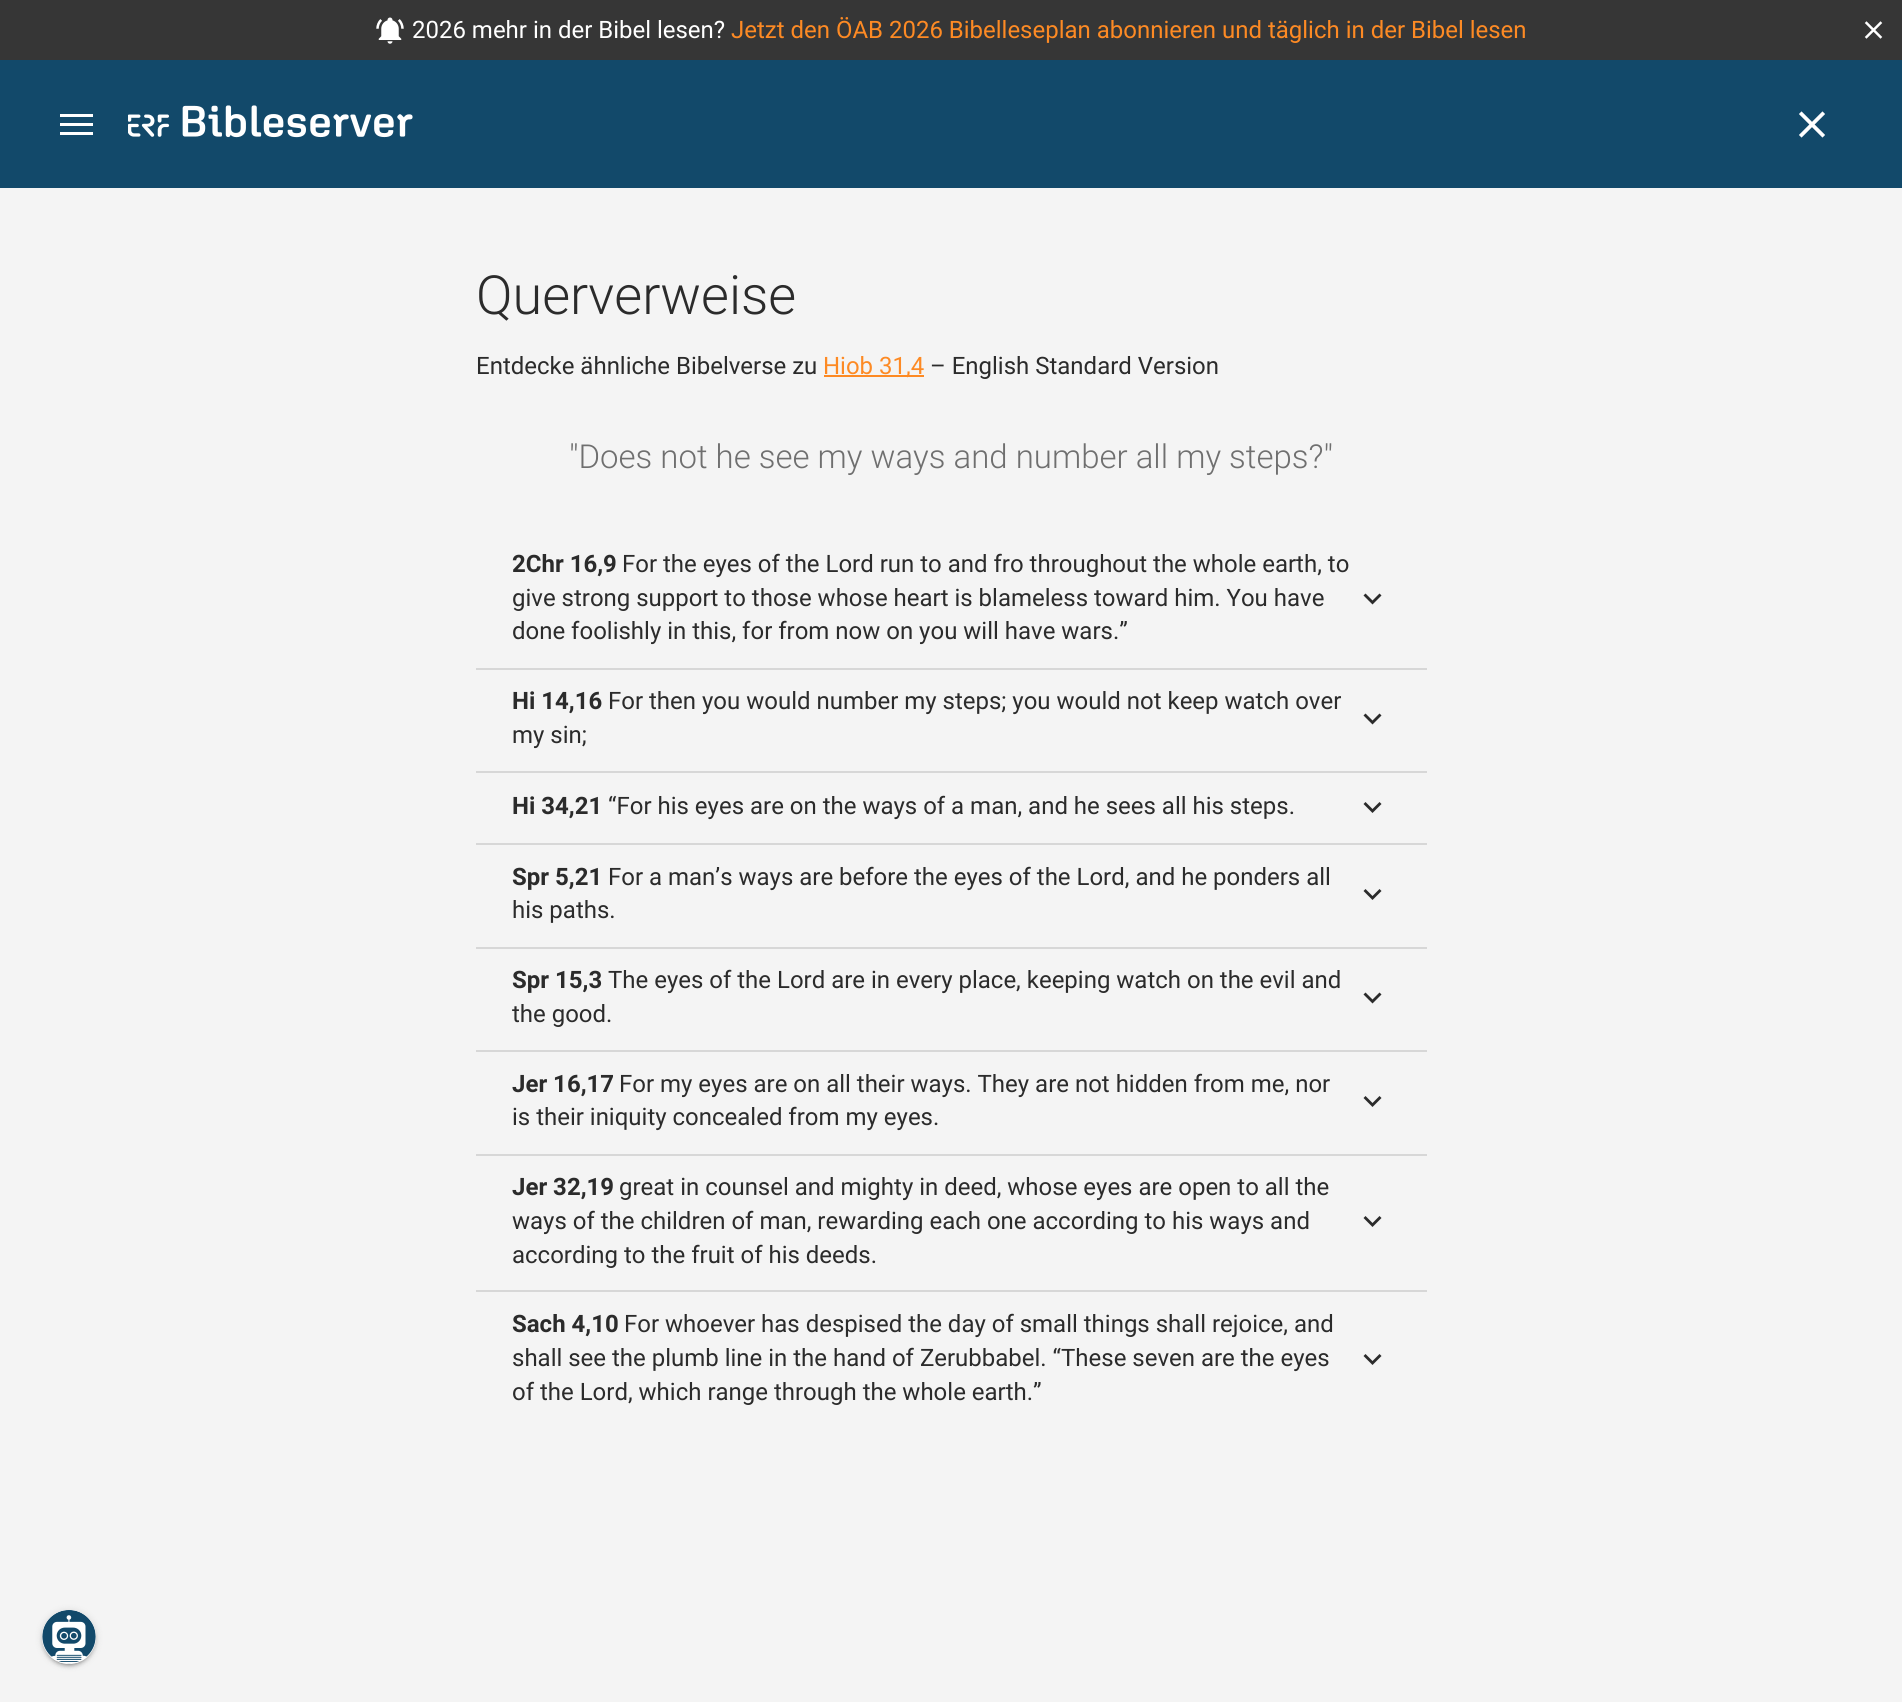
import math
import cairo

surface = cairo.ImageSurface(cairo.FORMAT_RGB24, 1902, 1702)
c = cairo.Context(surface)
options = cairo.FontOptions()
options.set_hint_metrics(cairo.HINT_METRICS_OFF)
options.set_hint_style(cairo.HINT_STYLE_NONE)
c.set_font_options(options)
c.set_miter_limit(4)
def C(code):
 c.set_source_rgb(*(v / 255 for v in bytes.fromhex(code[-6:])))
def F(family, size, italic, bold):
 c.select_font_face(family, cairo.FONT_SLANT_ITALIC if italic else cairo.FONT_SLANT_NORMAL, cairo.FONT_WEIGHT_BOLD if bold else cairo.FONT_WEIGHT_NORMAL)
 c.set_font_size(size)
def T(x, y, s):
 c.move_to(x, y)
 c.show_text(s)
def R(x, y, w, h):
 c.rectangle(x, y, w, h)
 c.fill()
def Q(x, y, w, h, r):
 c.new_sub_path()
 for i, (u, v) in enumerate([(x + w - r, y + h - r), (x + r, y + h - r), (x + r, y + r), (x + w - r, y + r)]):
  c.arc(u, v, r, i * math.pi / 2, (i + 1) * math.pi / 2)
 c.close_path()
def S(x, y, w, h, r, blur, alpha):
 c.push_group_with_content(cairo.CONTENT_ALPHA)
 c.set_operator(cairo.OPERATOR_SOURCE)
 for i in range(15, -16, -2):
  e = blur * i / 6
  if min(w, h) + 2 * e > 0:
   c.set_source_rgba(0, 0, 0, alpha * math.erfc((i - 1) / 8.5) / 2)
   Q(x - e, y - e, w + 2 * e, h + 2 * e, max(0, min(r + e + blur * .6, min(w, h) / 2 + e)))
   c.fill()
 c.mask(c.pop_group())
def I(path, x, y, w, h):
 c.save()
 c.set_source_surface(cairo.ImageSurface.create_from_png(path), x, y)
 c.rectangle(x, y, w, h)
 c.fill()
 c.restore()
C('f4f4f4')
c.paint()
C('363636')
R(0,0,1902,60)
I('1.png',376,17,28,27)
F('Roboto',24,0,0)
C('ffffff')
T(412,38,'2026 mehr in der Bibel lesen?')
C('fd8a24')
T(731,38,'Jetzt den ÖAB 2026 Bibelleseplan abonnieren und täglich in der Bibel lesen')
I('2.png',1864,21,19,18)
C('12496a')
R(0,60,1902,128)
I('3.png',1799,111,26,27)
C('ffffff')
R(60,114,33,3)
R(60,123,33,3)
R(60,132,33,3)
I('4.png',128,105,285,33)
F('Roboto Light',54,0,0)
C('2b2b2b')
T(476,314,'Querverweise')
F('Roboto',24,0,0)
T(476,374,'Entdecke ähnliche Bibelverse zu')
C('fd8a24')
R(824,375,100,2)
T(823,374,'Hiob 31,4')
C('2b2b2b')
T(930,374,'– English Standard Version')
F('Roboto Light',33,0,0)
C('6f6f6f')
T(569,468,'"Does not he see my ways and number all my steps?"')
F('Roboto',24,0,1)
C('2b2b2b')
T(512,572,'2Chr 16,9')
F('Roboto',24,0,0)
T(622,572,'For the eyes of the Lord run to and fro throughout the whole earth, to')
T(512,606,'give strong support to those whose heart is blameless toward him. You have')
T(512,639,'done foolishly in this, for from now on you will have wars.”')
c.new_path()
c.move_to(1365.5,593.5)
c.line_to(1372.5,600.5)
c.line_to(1379.5,593.5)
c.line_to(1381.5,595.5)
c.line_to(1372.5,604.5)
c.line_to(1363.5,595.5)
c.close_path()
c.fill()
C('d7d7d7')
R(476,668,951,2)
F('Roboto',24,0,1)
C('2b2b2b')
T(512,709,'Hi 14,16')
F('Roboto',24,0,0)
T(608,709,'For then you would number my steps; you would not keep watch over')
T(512,743,'my sin;')
c.new_path()
c.move_to(1365.5,713.5)
c.line_to(1372.5,720.5)
c.line_to(1379.5,713.5)
c.line_to(1381.5,715.5)
c.line_to(1372.5,724.5)
c.line_to(1363.5,715.5)
c.close_path()
c.fill()
C('d7d7d7')
R(476,771,951,2)
F('Roboto',24,0,1)
C('2b2b2b')
T(512,814,'Hi 34,21')
F('Roboto',24,0,0)
T(608,814,'“For his eyes are on the ways of a man, and he sees all his steps.')
c.new_path()
c.move_to(1365.5,802)
c.line_to(1372.5,809)
c.line_to(1379.5,802)
c.line_to(1381.5,804)
c.line_to(1372.5,813)
c.line_to(1363.5,804)
c.close_path()
c.fill()
C('d7d7d7')
R(476,843,951,2)
F('Roboto',24,0,1)
C('2b2b2b')
T(512,885,'Spr 5,21')
F('Roboto',24,0,0)
T(608,885,'For a man’s ways are before the eyes of the Lord, and he ponders all')
T(512,918,'his paths.')
c.new_path()
c.move_to(1365.5,889)
c.line_to(1372.5,896)
c.line_to(1379.5,889)
c.line_to(1381.5,891)
c.line_to(1372.5,900)
c.line_to(1363.5,891)
c.close_path()
c.fill()
C('d7d7d7')
R(476,947,951,2)
F('Roboto',24,0,1)
C('2b2b2b')
T(512,988,'Spr 15,3')
F('Roboto',24,0,0)
T(608,988,'The eyes of the Lord are in every place, keeping watch on the evil and')
T(512,1022,'the good.')
c.new_path()
c.move_to(1365.5,992.5)
c.line_to(1372.5,999.5)
c.line_to(1379.5,992.5)
c.line_to(1381.5,994.5)
c.line_to(1372.5,1003.5)
c.line_to(1363.5,994.5)
c.close_path()
c.fill()
C('d7d7d7')
R(476,1050,951,2)
F('Roboto',24,0,1)
C('2b2b2b')
T(512,1092,'Jer 16,17')
F('Roboto',24,0,0)
T(619,1092,'For my eyes are on all their ways. They are not hidden from me, nor')
T(512,1125,'is their iniquity concealed from my eyes.')
c.new_path()
c.move_to(1365.5,1096)
c.line_to(1372.5,1103)
c.line_to(1379.5,1096)
c.line_to(1381.5,1098)
c.line_to(1372.5,1107)
c.line_to(1363.5,1098)
c.close_path()
c.fill()
C('d7d7d7')
R(476,1154,951,2)
F('Roboto',24,0,1)
C('2b2b2b')
T(512,1195,'Jer 32,19')
F('Roboto',24,0,0)
T(619,1195,'great in counsel and mighty in deed, whose eyes are open to all the')
T(512,1229,'ways of the children of man, rewarding each one according to his ways and')
T(512,1263,'according to the fruit of his deeds.')
c.new_path()
c.move_to(1365.5,1216)
c.line_to(1372.5,1223)
c.line_to(1379.5,1216)
c.line_to(1381.5,1218)
c.line_to(1372.5,1227)
c.line_to(1363.5,1218)
c.close_path()
c.fill()
C('d7d7d7')
R(476,1290,951,2)
F('Roboto',24,0,1)
C('2b2b2b')
T(512,1332,'Sach 4,10')
F('Roboto',24,0,0)
T(624,1332,'For whoever has despised the day of small things shall rejoice, and')
T(512,1366,'shall see the plumb line in the hand of Zerubbabel. “These seven are the eyes')
T(512,1400,'of the Lord, which range through the whole earth.”')
c.new_path()
c.move_to(1365.5,1354)
c.line_to(1372.5,1361)
c.line_to(1379.5,1354)
c.line_to(1381.5,1356)
c.line_to(1372.5,1365)
c.line_to(1363.5,1356)
c.close_path()
c.fill()
C('000000')
S(42,1611,54,54,27,4,.12)
S(42,1613,54,54,27,1.5,.14)
S(45,1617,48,48,24,1,.2)
C('ffffff')
c.arc(69,1637,27,0,2 * math.pi)
c.fill()
I('5.png',42,1610,54,54)
surface.write_to_png('o.png')
